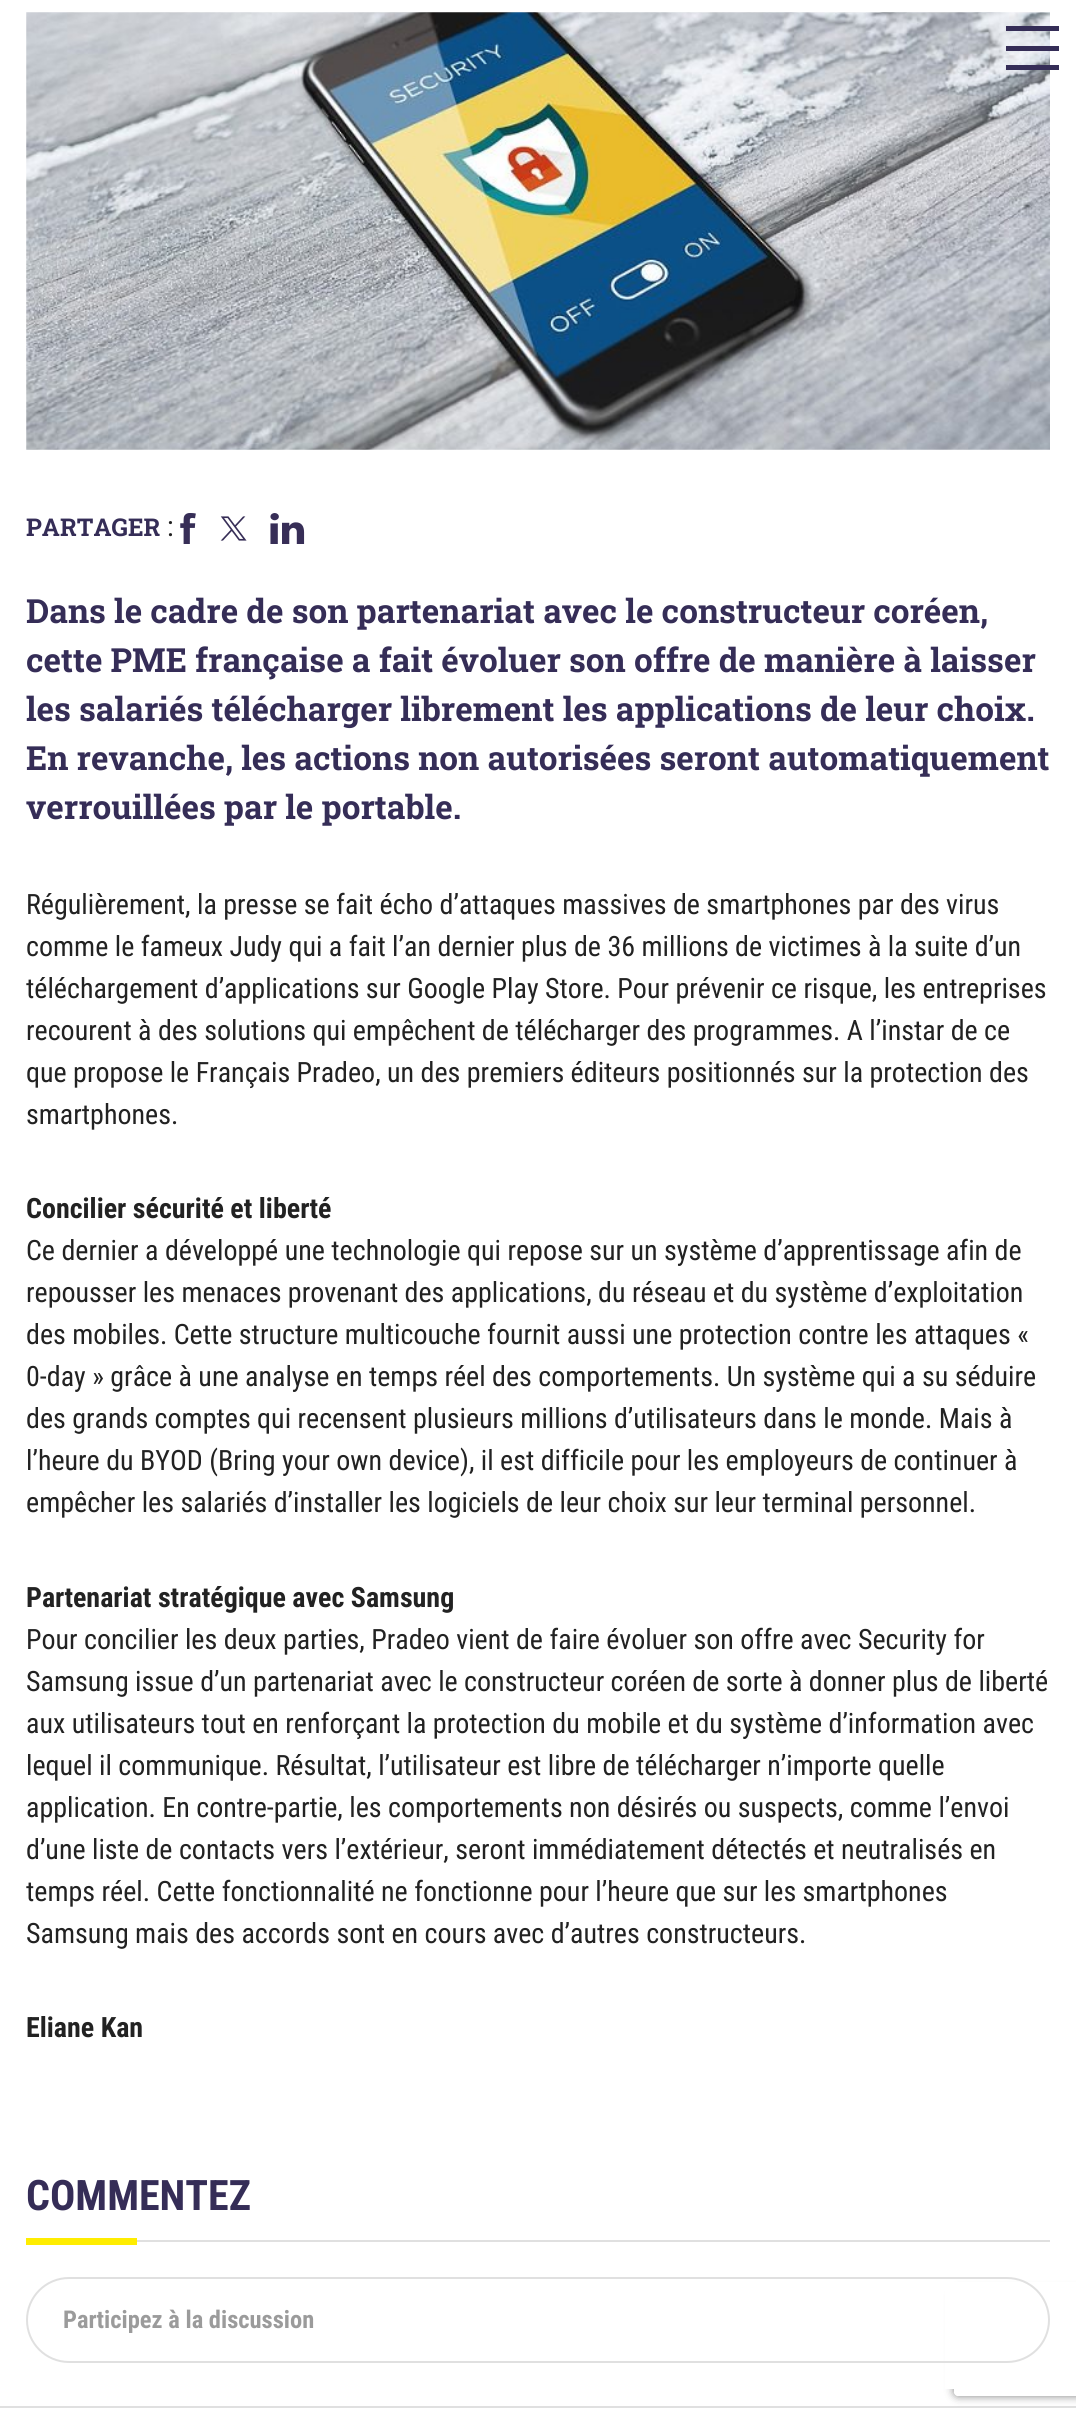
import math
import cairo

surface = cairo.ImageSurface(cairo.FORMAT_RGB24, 1076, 2420)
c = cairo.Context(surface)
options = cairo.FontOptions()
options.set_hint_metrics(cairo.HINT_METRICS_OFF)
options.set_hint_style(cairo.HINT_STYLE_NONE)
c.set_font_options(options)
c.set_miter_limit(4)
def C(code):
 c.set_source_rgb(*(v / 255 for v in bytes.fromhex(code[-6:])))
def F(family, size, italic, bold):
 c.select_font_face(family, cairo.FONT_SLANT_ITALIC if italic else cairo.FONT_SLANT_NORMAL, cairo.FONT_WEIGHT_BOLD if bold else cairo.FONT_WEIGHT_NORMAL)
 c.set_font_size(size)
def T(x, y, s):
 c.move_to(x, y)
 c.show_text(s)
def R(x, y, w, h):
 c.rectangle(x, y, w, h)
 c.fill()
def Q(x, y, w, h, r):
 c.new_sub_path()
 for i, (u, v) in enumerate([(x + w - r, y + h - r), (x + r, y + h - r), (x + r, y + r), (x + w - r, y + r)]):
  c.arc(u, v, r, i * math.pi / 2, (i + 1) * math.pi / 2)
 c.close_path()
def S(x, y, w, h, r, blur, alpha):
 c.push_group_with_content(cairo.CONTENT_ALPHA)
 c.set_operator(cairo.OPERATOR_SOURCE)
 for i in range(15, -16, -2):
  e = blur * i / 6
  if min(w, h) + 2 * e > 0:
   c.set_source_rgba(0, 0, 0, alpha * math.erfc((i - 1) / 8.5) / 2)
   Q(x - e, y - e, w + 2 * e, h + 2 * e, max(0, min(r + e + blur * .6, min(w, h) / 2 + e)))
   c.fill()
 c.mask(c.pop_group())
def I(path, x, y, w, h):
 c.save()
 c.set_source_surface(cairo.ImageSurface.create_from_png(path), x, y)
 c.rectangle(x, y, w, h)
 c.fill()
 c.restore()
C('ffffff')
c.paint()
I('1.png',26,12,1024,438)
C('352d57')
R(1006,26,53,5)
R(1006,46,53,5)
R(1006,65,53,5)
C('e0e0e0')
R(0,2406,1076,2)
c.save()
c.set_fill_rule(cairo.FILL_RULE_EVEN_ODD)
c.new_path()
c.move_to(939,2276)
c.line_to(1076,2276)
c.line_to(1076,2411)
c.line_to(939,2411)
c.close_path()
c.move_to(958,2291)
c.line_to(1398,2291)
c.curve_to(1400,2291,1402,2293,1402,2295)
c.line_to(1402,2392)
c.curve_to(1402,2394,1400,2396,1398,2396)
c.line_to(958,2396)
c.curve_to(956,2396,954,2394,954,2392)
c.line_to(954,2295)
c.curve_to(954,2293,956,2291,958,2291)
c.close_path()
c.clip()
C('808080')
S(954,2291,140,105,4,4.5,1)
c.restore()
C('ffffff')
R(945,2282,131,107)
F('Roboto Slab',24.5,0,1)
C('352d57')
T(26,536,'PARTAGER')
F('Roboto Condensed',28,0,0)
C('222222')
T(167,536,':')
I('2.png',180,513,16,31)
I('3.png',220,516,27,25)
I('4.png',270,513,35,31)
F('Roboto Slab',33.25,0,1)
C('352d57')
T(26,623,'Dans le cadre de son partenariat avec le constructeur coréen,')
T(26,672,'cette PME française a fait évoluer son offre de manière à laisser')
T(26,721,'les salariés télécharger librement les applications de leur choix.')
T(26,770,'En revanche, les actions non autorisées seront automatiquement')
T(26,819,'verrouillées par le portable.')
F('Roboto Condensed',28,0,0)
C('222222')
T(26,914,'Régulièrement, la presse se fait écho d’attaques massives de smartphones par des virus')
T(26,956,'comme le fameux Judy qui a fait l’an dernier plus de 36 millions de victimes à la suite d’un')
T(26,998,'téléchargement d’applications sur Google Play Store. Pour prévenir ce risque, les entreprises')
T(26,1040,'recourent à des solutions qui empêchent de télécharger des programmes. A l’instar de ce')
T(26,1082,'que propose le Français Pradeo, un des premiers éditeurs positionnés sur la protection des')
T(26,1124,'smartphones.')
F('Roboto Condensed',28,0,1)
T(26,1218,'Concilier sécurité et liberté')
F('Roboto Condensed',28,0,0)
T(26,1260,'Ce dernier a développé une technologie qui repose sur un système d’apprentissage afin de')
T(26,1302,'repousser les menaces provenant des applications, du réseau et du système d’exploitation')
T(26,1344,'des mobiles. Cette structure multicouche fournit aussi une protection contre les attaques «')
T(26,1386,'0-day » grâce à une analyse en temps réel des comportements. Un système qui a su séduire')
T(26,1428,'des grands comptes qui recensent plusieurs millions d’utilisateurs dans le monde. Mais à')
T(26,1470,'l’heure du BYOD (Bring your own device), il est difficile pour les employeurs de continuer à')
T(26,1512,'empêcher les salariés d’installer les logiciels de leur choix sur leur terminal personnel.')
F('Roboto Condensed',28,0,1)
T(26,1607,'Partenariat stratégique avec Samsung')
F('Roboto Condensed',28,0,0)
T(26,1649,'Pour concilier les deux parties, Pradeo vient de faire évoluer son offre avec Security for')
T(26,1691,'Samsung issue d’un partenariat avec le constructeur coréen de sorte à donner plus de liberté')
T(26,1733,'aux utilisateurs tout en renforçant la protection du mobile et du système d’information avec')
T(26,1775,'lequel il communique. Résultat, l’utilisateur est libre de télécharger n’importe quelle')
T(26,1817,'application. En contre-partie, les comportements non désirés ou suspects, comme l’envoi')
T(26,1859,'d’une liste de contacts vers l’extérieur, seront immédiatement détectés et neutralisés en')
T(26,1901,'temps réel. Cette fonctionnalité ne fonctionne pour l’heure que sur les smartphones')
T(26,1943,'Samsung mais des accords sont en cours avec d’autres constructeurs.')
F('Roboto Condensed',28,0,1)
T(26,2037,'Eliane Kan')
C('e0e0e0')
R(137,2240,913,2)
F('Roboto Condensed',42,0,1)
C('352d57')
T(26,2210,'COMMENTEZ')
C('ffed00')
R(26,2238,111,7)
Q(27,2278,1022,84,42)
C('e0e0e0')
c.stroke()
F('Roboto Condensed',24.5,0,1)
C('9b9b9b')
T(63,2328,'Participez à la discussion')
surface.write_to_png('o.png')
